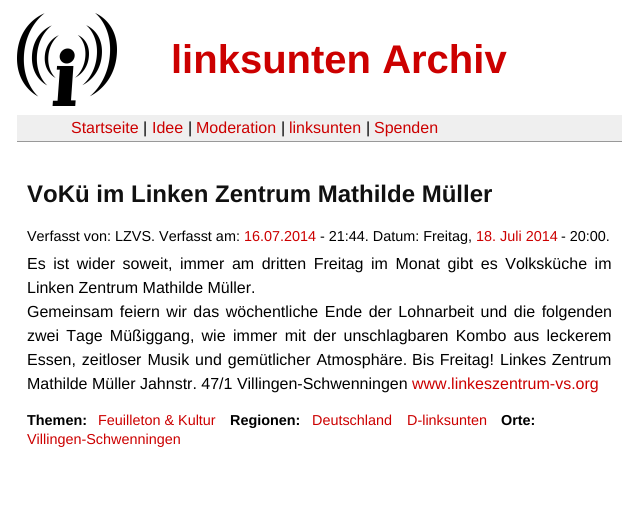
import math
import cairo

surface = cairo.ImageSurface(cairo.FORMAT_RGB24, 639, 527)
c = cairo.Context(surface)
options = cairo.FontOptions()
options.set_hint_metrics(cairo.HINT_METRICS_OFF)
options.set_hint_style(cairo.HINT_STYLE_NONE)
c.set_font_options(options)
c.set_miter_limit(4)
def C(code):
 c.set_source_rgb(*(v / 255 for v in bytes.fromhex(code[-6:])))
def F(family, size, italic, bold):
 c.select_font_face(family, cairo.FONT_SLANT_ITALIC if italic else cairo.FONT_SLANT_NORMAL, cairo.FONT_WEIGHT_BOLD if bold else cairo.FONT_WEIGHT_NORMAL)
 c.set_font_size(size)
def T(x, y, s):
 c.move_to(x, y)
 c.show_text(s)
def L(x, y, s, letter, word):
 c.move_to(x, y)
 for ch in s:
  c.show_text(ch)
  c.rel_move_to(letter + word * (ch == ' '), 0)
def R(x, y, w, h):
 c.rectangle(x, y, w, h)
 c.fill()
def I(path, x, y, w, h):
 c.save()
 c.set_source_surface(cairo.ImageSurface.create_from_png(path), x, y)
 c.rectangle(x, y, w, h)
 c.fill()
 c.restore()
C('ffffff')
c.paint()
I('1.png',17,13,100,93)
F('Liberation Sans',40,0,1)
C('cc0000')
T(171,73,'linksunten Archiv')
C('efefef')
R(17,115,605,26)
C('999999')
R(17,141,605,1)
F('Liberation Sans',16,0,0)
C('cc0000')
T(71,133,'Startseite')
C('000000')
T(143,133,'|')
C('cc0000')
T(152,133,'Idee')
C('000000')
T(188,133,'|')
C('cc0000')
T(196,133,'Moderation')
C('000000')
T(281,133,'|')
C('cc0000')
T(289,133,'linksunten')
C('000000')
T(366,133,'|')
C('cc0000')
T(374,133,'Spenden')
F('Liberation Sans',24,0,1)
C('111111')
T(27,202,'VoKü im Linken Zentrum Mathilde Müller')
F('Liberation Sans',14.4,0,0)
C('000000')
T(27,241,'Verfasst von: LZVS. Verfasst am:')
C('cc0000')
T(244,241,'16.07.2014')
C('000000')
T(320,241,'- 21:44. Datum: Freitag,')
C('cc0000')
T(476,241,'18. Juli 2014')
C('000000')
T(561,241,'- 20:00.')
F('Liberation Sans',16,0,0)
L(27,269,'Es ist wider soweit, immer am dritten Freitag im Monat gibt es Volksküche im',0,3.1)
T(27,293,'Linken Zentrum Mathilde Müller.')
L(27,317,'Gemeinsam feiern wir das wöchentliche Ende der Lohnarbeit und die folgenden',0,2.1)
L(27,341,'zwei Tage Müßiggang, wie',0,2.75)
L(233,341,'immer mit der unschlagbaren Kombo aus leckerem',0,2.75)
L(27,365,'Essen, zeitloser Musik und gemütlicher Atmosphäre.',0,1.5)
L(412,365,'Bis Freitag!',0,1)
L(500,365,'Linkes Zentrum',0,1)
T(27,389,'Mathilde Müller Jahnstr. 47/1 Villingen-Schwenningen')
C('cc0000')
T(412,389,'www.linkeszentrum-vs.org')
F('Liberation Sans',14.4,0,1)
C('000000')
T(27,425,'Themen:')
F('Liberation Sans',14.4,0,0)
C('cc0000')
T(98,425,'Feuilleton & Kultur')
F('Liberation Sans',14.4,0,1)
C('000000')
T(501,425,'Orte:')
F('Liberation Sans',14.4,0,0)
C('cc0000')
T(27,444,'Villingen-Schwenningen')
F('Liberation Sans',14.4,0,1)
C('000000')
T(230,425,'Regionen:')
F('Liberation Sans',14.4,0,0)
C('cc0000')
T(312,425,'Deutschland')
T(407,425,'D-linksunten')
surface.write_to_png('o.png')
